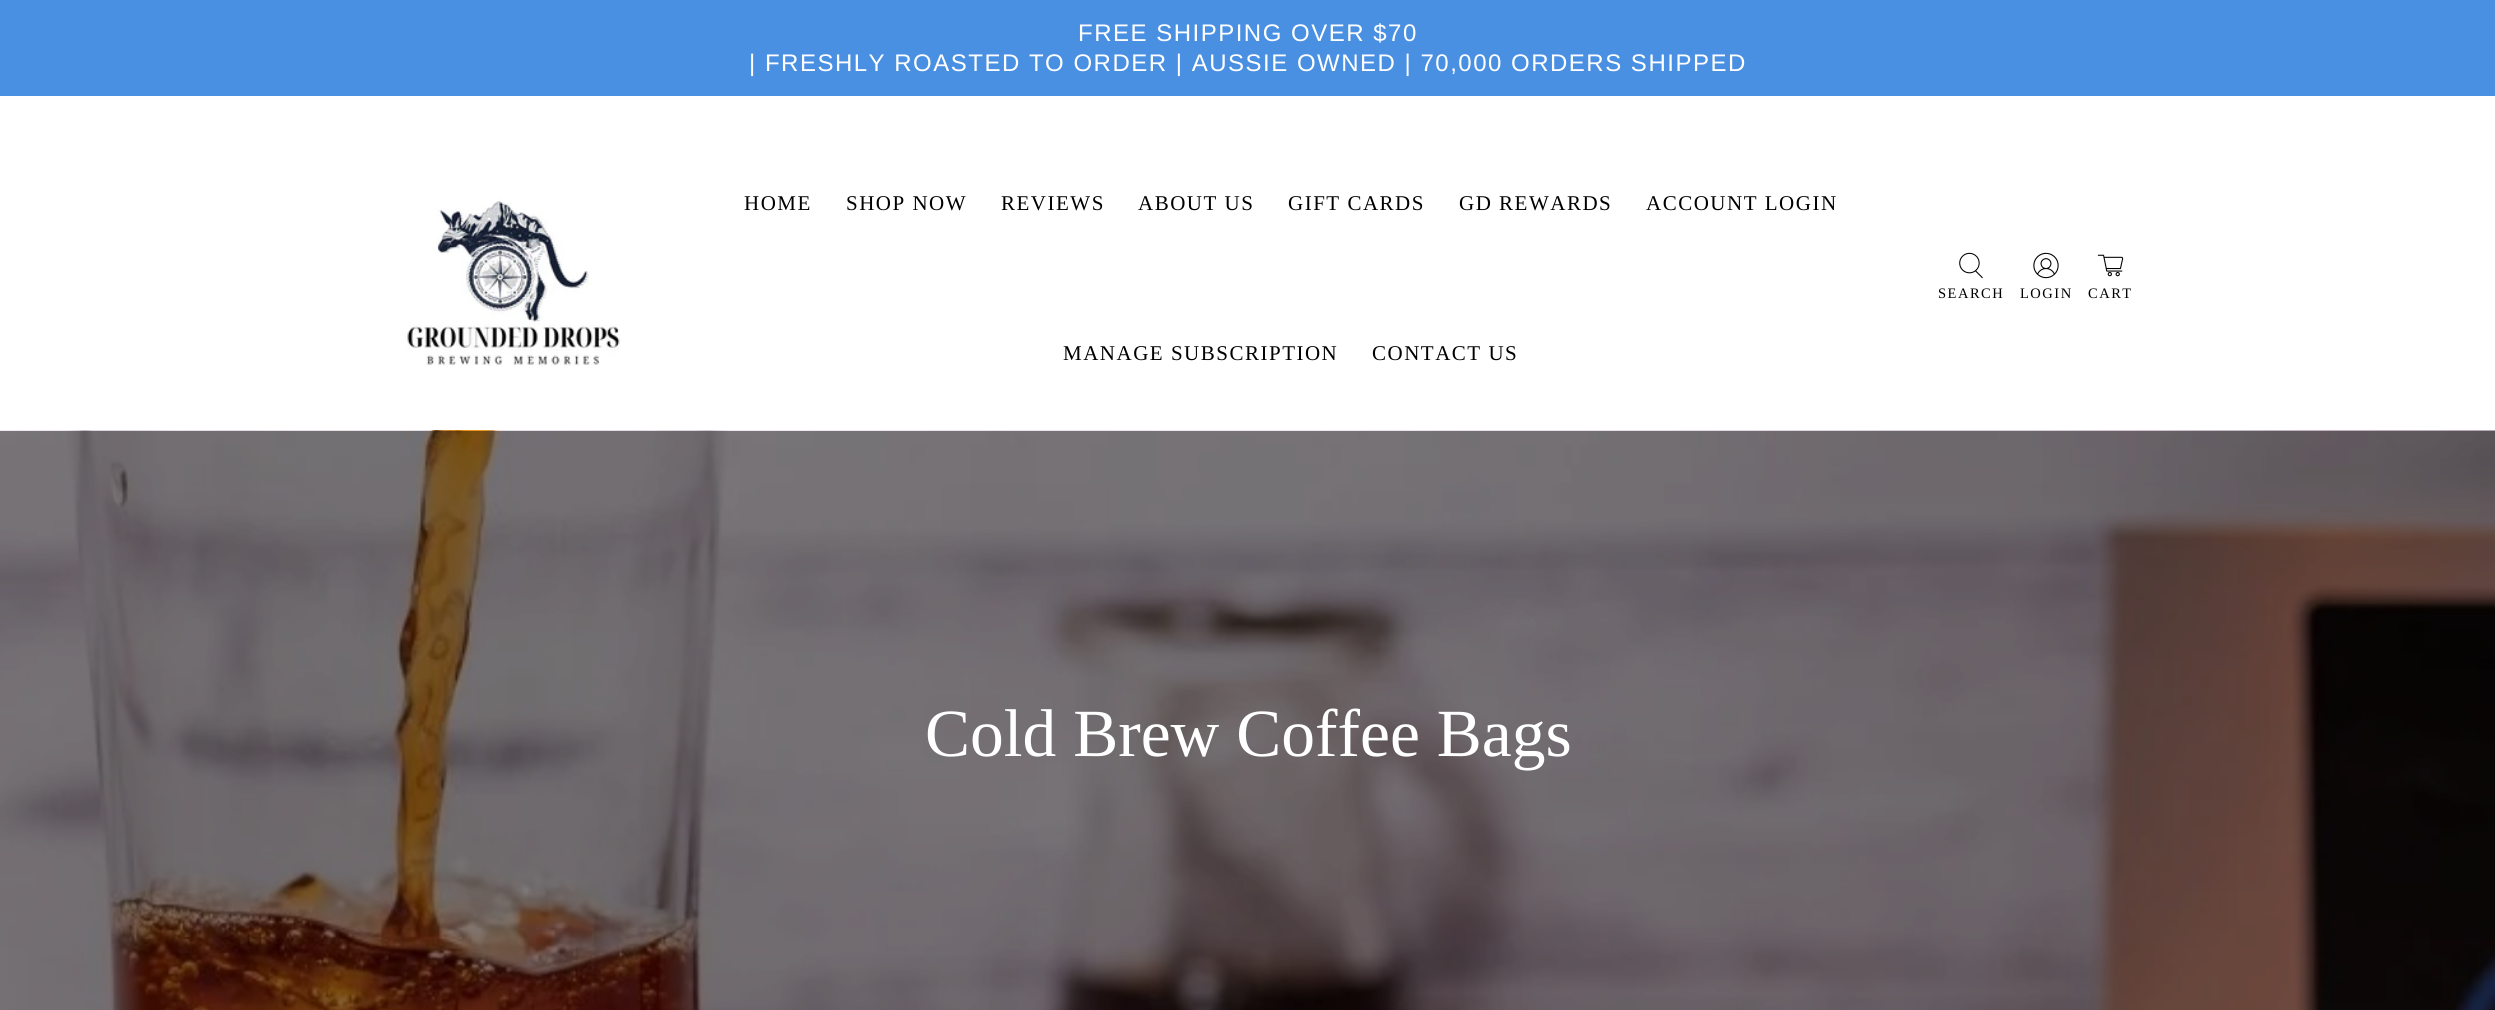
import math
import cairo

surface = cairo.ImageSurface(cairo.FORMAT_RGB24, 2495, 1010)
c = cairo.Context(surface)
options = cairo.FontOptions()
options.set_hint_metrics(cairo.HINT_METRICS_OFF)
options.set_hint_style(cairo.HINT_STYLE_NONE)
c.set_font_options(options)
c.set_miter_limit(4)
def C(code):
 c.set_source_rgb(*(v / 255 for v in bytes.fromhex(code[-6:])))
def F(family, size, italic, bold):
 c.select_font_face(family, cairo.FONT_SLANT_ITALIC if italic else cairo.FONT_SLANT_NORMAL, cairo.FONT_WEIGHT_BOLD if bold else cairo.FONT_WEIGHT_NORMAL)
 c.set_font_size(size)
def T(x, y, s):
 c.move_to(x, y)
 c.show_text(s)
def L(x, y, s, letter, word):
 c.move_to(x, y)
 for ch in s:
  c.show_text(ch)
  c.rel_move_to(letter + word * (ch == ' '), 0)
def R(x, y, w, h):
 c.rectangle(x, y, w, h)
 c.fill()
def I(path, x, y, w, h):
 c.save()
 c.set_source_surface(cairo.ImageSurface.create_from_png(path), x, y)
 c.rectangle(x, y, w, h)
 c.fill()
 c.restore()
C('ffffff')
c.paint()
C('4a90e2')
R(0,0,2495,96)
F('Liberation Sans',24,0,0)
C('ffffff')
L(1078,41,'FREE SHIPPING OVER $70',1.5,0)
L(749,71,'| FRESHLY ROASTED TO ORDER | AUSSIE OWNED | 70,000 ORDERS SHIPPED',1.5,0)
I('1.png',405,198,215,168)
F('Liberation Serif',21,0,0)
C('000000')
L(744,210,'HOME',1.5,0)
L(846,210,'SHOP NOW',1.5,0)
L(1001,210,'REVIEWS',1.5,0)
L(1138,210,'ABOUT US',1.5,0)
L(1288,210,'GIFT CARDS',1.5,0)
L(1459,210,'GD REWARDS',1.5,0)
L(1646,210,'ACCOUNT LOGIN',1.5,0)
L(1063,360,'MANAGE SUBSCRIPTION',1.5,0)
L(1372,360,'CONTACT US',1.5,0)
I('2.png',1959,252,24,27)
F('Liberation Serif',14.5,0,0)
L(1938,298,'SEARCH',1.5,0)
I('3.png',2033,252,26,27)
L(2020,298,'LOGIN',1.5,0)
I('4.png',2097,254,27,23)
L(2088,298,'CART',1.5,0)
I('5.png',0,430,2495,580)
F('Liberation Serif',67.5,0,0)
C('ffffff')
T(925,756,'Cold Brew Coffee Bags')
surface.write_to_png('o.png')
